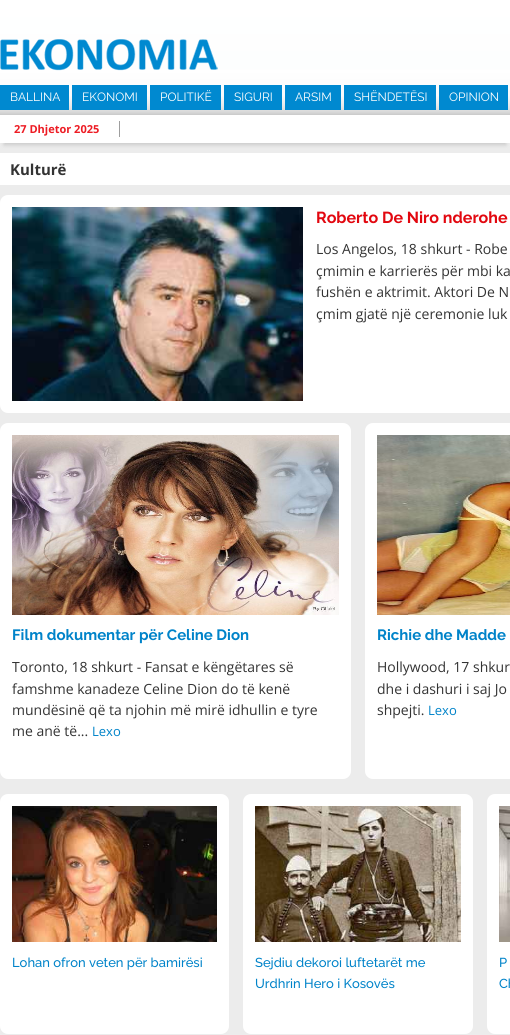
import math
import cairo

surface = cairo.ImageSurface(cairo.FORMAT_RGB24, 510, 1035)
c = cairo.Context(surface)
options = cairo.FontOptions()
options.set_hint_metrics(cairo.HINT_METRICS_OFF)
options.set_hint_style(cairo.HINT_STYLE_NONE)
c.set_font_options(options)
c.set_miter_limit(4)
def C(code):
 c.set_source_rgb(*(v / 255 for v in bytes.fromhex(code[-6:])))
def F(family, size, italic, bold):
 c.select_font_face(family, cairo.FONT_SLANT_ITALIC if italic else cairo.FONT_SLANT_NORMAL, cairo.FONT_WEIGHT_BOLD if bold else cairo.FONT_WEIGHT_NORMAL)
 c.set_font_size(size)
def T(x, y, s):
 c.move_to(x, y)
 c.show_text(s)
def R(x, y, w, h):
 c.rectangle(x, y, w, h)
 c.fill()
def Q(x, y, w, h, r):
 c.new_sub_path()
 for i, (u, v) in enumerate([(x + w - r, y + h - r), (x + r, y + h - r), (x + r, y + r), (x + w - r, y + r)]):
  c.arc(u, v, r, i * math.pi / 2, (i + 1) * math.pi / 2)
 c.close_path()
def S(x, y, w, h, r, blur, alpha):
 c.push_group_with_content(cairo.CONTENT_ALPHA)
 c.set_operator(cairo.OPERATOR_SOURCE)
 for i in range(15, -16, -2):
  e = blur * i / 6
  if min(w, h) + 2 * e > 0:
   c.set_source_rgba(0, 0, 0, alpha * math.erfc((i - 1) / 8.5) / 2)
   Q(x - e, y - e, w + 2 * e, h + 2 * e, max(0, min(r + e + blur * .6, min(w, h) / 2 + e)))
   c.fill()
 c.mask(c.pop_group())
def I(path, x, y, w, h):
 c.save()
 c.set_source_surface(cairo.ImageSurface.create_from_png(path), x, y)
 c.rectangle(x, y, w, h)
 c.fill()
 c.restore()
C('ececec')
c.paint()
C('ffffff')
R(0,115,510,28)
gradient = cairo.LinearGradient(255,0,255,115)
gradient.add_color_stop_rgba(0,1,1,1,1)
gradient.add_color_stop_rgba(.6,0.992,0.996,0.996,1)
gradient.add_color_stop_rgba(.61,1,1,1,1)
gradient.add_color_stop_rgba(.82,0.984,0.984,0.984,1)
gradient.add_color_stop_rgba(.83,0.984,0.984,0.984,1)
gradient.add_color_stop_rgba(.92,0.914,0.914,0.914,1)
gradient.add_color_stop_rgba(.97,0.855,0.855,0.855,1)
gradient.add_color_stop_rgba(1,0.792,0.792,0.792,1)
c.set_source(gradient)
R(0,0,510,115)
I('1.png',0,39,218,32)
C('0089d0')
R(0,85,69,25)
F('Raleway',12,0,0)
C('ffffff')
T(10,101,'BALLINA')
C('0089d0')
R(72,85,75,25)
C('ffffff')
T(82,101,'EKONOMI')
C('0089d0')
R(150,85,71,25)
C('ffffff')
T(160,101,'POLITIKË')
C('0089d0')
R(224,85,58,25)
C('ffffff')
T(234,101,'SIGURI')
C('0089d0')
R(285,85,56,25)
C('ffffff')
T(295,101,'ARSIM')
C('0089d0')
R(344,85,92,25)
C('ffffff')
T(354,101,'SHËNDETËSI')
C('0089d0')
R(439,85,69,25)
C('ffffff')
T(449,101,'OPINION')
c.save()
c.rectangle(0,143,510,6)
c.clip()
C('cacaca')
S(4,125,502,20,0,2,1)
c.restore()
C('9e9e9e')
R(119,121,1,16)
F('Open Sans',11,0,1)
C('ed1c24')
T(14,133,'27 Dhjetor 2025')
C('ffffff')
R(0,153,510,32)
F('Open Sans',15,0,1)
C('333333')
T(10,175,'Kulturë')
C('ffffff')
Q(0,195,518,218,8)
c.fill()
I('2.png',12,207,291,194)
F('Raleway',16,0,1)
C('e2070f')
T(316,223,'Roberto De Niro nderohe')
F('Open Sans',14,0,0)
C('333333')
T(316,254,'Los Angelos, 18 shkurt - Robe')
T(316,276,'çmimin e karrierës për mbi ka')
T(316,297,'fushën e aktrimit. Aktori De N')
T(316,319,'çmim gjatë një ceremonie luk')
C('ffffff')
Q(0,423,351,356,8)
c.fill()
I('3.png',12,435,327,180)
F('Raleway',15,0,1)
C('0083c9')
T(12,640,'Film dokumentar për Celine Dion')
F('Open Sans',14,0,0)
C('333333')
T(12,672,'Toronto, 18 shkurt - Fansat e këngëtares së')
T(12,694,'famshme kanadeze Celine Dion do të kenë')
T(12,715,'mundësinë që ta njohin më mirë idhullin e tyre')
T(12,736,'me anë të...')
F('Open Sans',13,0,0)
C('0083c9')
T(92,736,'Lexo')
C('ffffff')
Q(365,423,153,356,8)
c.fill()
I('4.png',377,435,133,180)
F('Raleway',15,0,1)
C('0083c9')
T(377,640,'Richie dhe Madde')
F('Open Sans',14,0,0)
C('333333')
T(377,672,'Hollywood, 17 shkur')
T(377,694,'dhe i dashuri i saj Jo')
T(377,715,'shpejti.')
F('Open Sans',13,0,0)
C('0083c9')
T(428,715,'Lexo')
C('ffffff')
Q(0,794,229,240,8)
c.fill()
I('5.png',12,806,205,136)
F('Raleway Medium',13,0,0)
C('0083c9')
T(12,967,'Lohan ofron veten për bamirësi')
C('ffffff')
Q(243,794,230,240,8)
c.fill()
I('6.png',255,806,206,136)
C('0083c9')
T(255,967,'Sejdiu dekoroi luftetarët me')
T(255,988,'Urdhrin Hero i Kosovës')
C('ffffff')
Q(487,794,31,240,8)
c.fill()
I('7.png',499,806,11,136)
C('0083c9')
T(499,967,'P')
T(499,988,'Ch')
surface.write_to_png('o.png')
